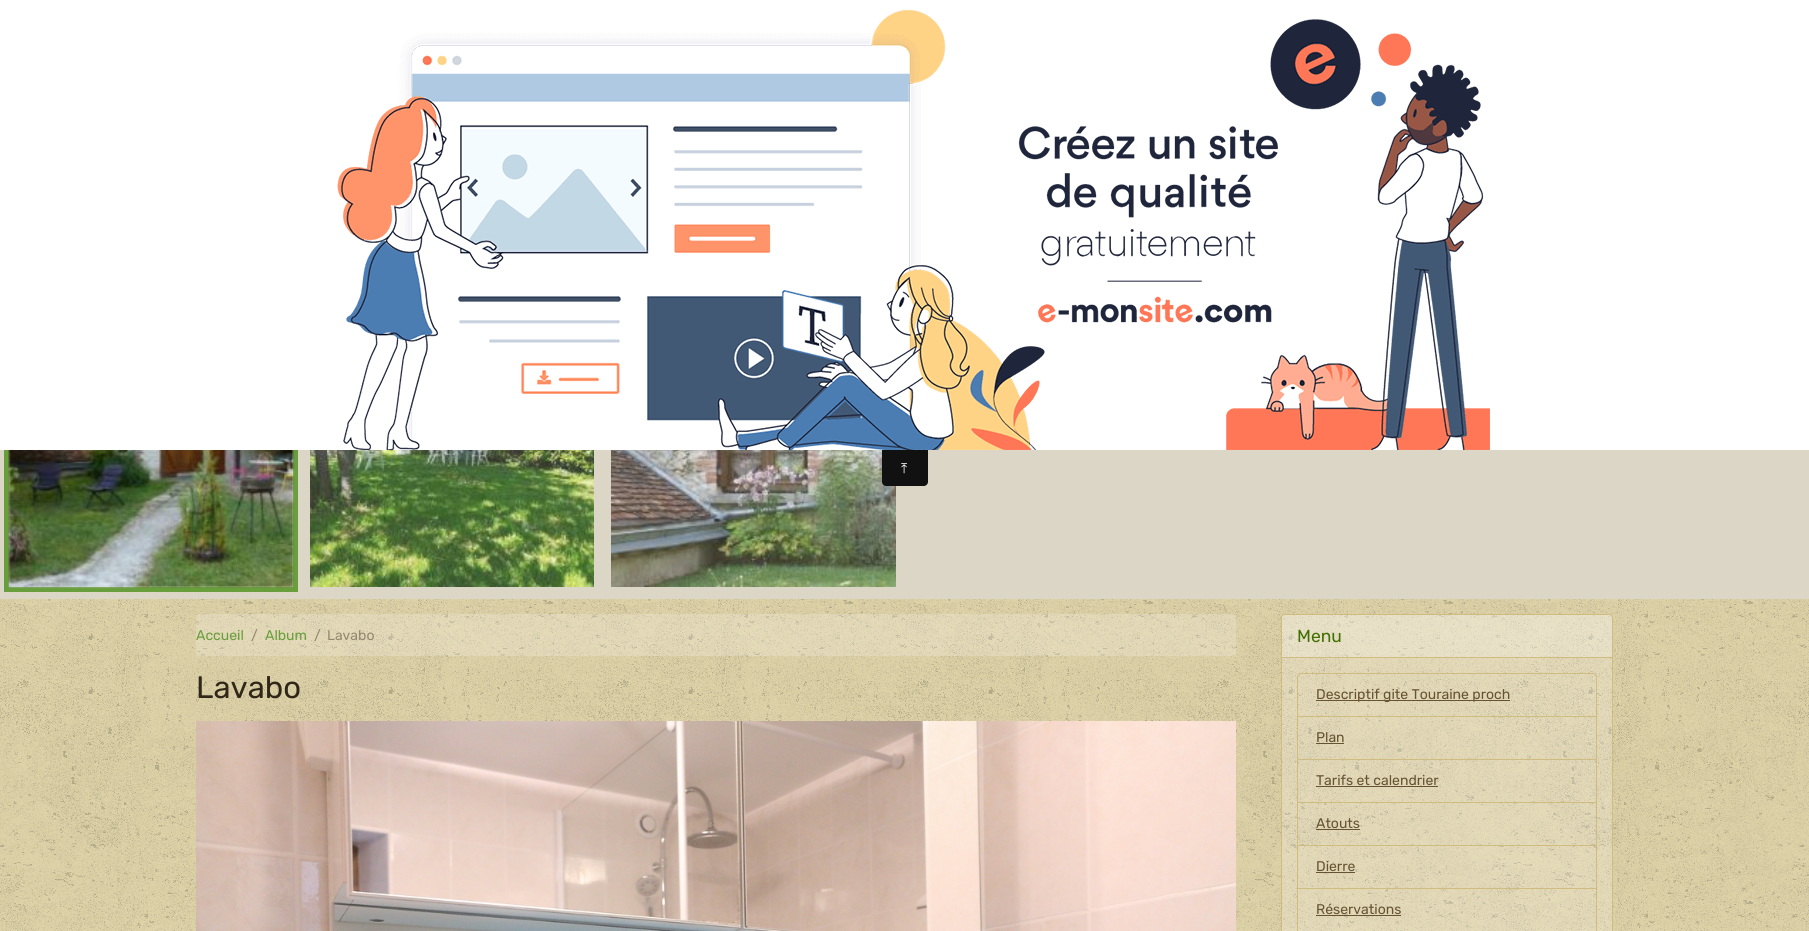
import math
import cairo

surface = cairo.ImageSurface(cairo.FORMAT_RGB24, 1809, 931)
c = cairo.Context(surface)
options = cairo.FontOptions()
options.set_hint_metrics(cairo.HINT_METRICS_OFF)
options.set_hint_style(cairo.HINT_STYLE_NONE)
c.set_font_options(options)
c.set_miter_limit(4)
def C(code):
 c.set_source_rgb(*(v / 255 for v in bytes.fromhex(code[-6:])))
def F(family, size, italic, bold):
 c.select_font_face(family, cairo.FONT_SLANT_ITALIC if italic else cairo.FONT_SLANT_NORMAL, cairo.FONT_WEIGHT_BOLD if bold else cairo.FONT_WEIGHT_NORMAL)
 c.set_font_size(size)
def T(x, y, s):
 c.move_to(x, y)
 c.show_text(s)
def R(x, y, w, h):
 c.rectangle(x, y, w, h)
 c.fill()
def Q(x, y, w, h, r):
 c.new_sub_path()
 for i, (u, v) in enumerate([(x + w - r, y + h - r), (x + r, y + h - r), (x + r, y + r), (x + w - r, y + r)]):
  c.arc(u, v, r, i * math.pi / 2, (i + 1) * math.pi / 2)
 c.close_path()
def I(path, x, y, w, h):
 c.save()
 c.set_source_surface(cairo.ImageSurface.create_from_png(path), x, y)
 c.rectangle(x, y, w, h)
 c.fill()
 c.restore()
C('ded2a8')
c.paint()
I('1.png',0,599,1809,332)
C('dcd6c6')
R(0,450,1809,149)
c.rectangle(6.5,300.5,289,289)
C('699e3c')
c.set_line_width(5)
c.stroke()
I('2.png',8,450,287,139)
I('3.png',310,450,284,137)
I('4.png',611,450,285,137)
C('ffffff')
R(0,0,1809,450)
I('5.png',337,10,1153,440)
C('111111')
c.new_path()
c.move_to(882,450)
c.line_to(928,450)
c.line_to(928,482)
c.curve_to(928,484,926,486,924,486)
c.line_to(886,486)
c.curve_to(884,486,882,484,882,482)
c.close_path()
c.fill()
F('FreeSerif',14,0,0)
C('ffffff')
T(901,473,'⤒')
c.set_source_rgba(1,1,1,0.2)
Q(196,614,1040,42,4)
c.fill()
F('Rubik',14,0,0)
C('699e3c')
T(196,640,'Accueil')
C('948770')
T(251,640,'/')
C('699e3c')
T(265,640,'Album')
C('948770')
T(314,640,'/')
T(327,640,'Lavabo')
F('Rubik',31,0,0)
C('302718')
T(196,698,'Lavabo')
I('6.png',196,721,1040,210)
c.set_source_rgba(1,1,1,0.2)
Q(1281.5,614.5,331,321,3.5)
c.fill_preserve()
C('cebd7e')
c.set_line_width(1)
c.stroke()
c.set_source_rgba(1,1,1,0.2)
c.new_path()
c.move_to(1284.5,615)
c.line_to(1609.5,615)
c.curve_to(1611,615,1612,616,1612,617.5)
c.line_to(1612,658)
c.line_to(1282,658)
c.line_to(1282,617.5)
c.curve_to(1282,616,1283,615,1284.5,615)
c.close_path()
c.fill()
C('cebd7e')
R(1282,657,330,1)
F('Rubik',17.5,0,0)
C('417002')
T(1297,642,'Menu')
c.new_path()
c.move_to(1301,673.5)
c.line_to(1593,673.5)
c.curve_to(1595,673.5,1596.5,675,1596.5,677)
c.line_to(1596.5,716.5)
c.line_to(1297.5,716.5)
c.line_to(1297.5,677)
c.curve_to(1297.5,675,1299,673.5,1301,673.5)
c.close_path()
C('cebd7e')
c.stroke()
C('665333')
R(1316,700,194,1)
F('Rubik',14,0,0)
T(1316,699,'Descriptif gite Touraine proch')
c.rectangle(1297.5,716.5,299,43)
C('cebd7e')
c.stroke()
C('665333')
T(1316,742,'Plan')
R(1316,743,28,1)
c.rectangle(1297.5,759.5,299,43)
C('cebd7e')
c.stroke()
C('665333')
T(1316,785,'Tarifs et calendrier')
R(1316,786,122,1)
c.rectangle(1297.5,802.5,299,43)
C('cebd7e')
c.stroke()
C('665333')
T(1316,828,'Atouts')
R(1316,829,44,1)
c.rectangle(1297.5,845.5,299,43)
C('cebd7e')
c.stroke()
C('665333')
T(1316,871,'Dierre')
R(1316,872,39,1)
c.rectangle(1297.5,888.5,299,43)
C('cebd7e')
c.stroke()
C('665333')
T(1316,914,'Réservations')
R(1316,915,85,1)
surface.write_to_png('o.png')
